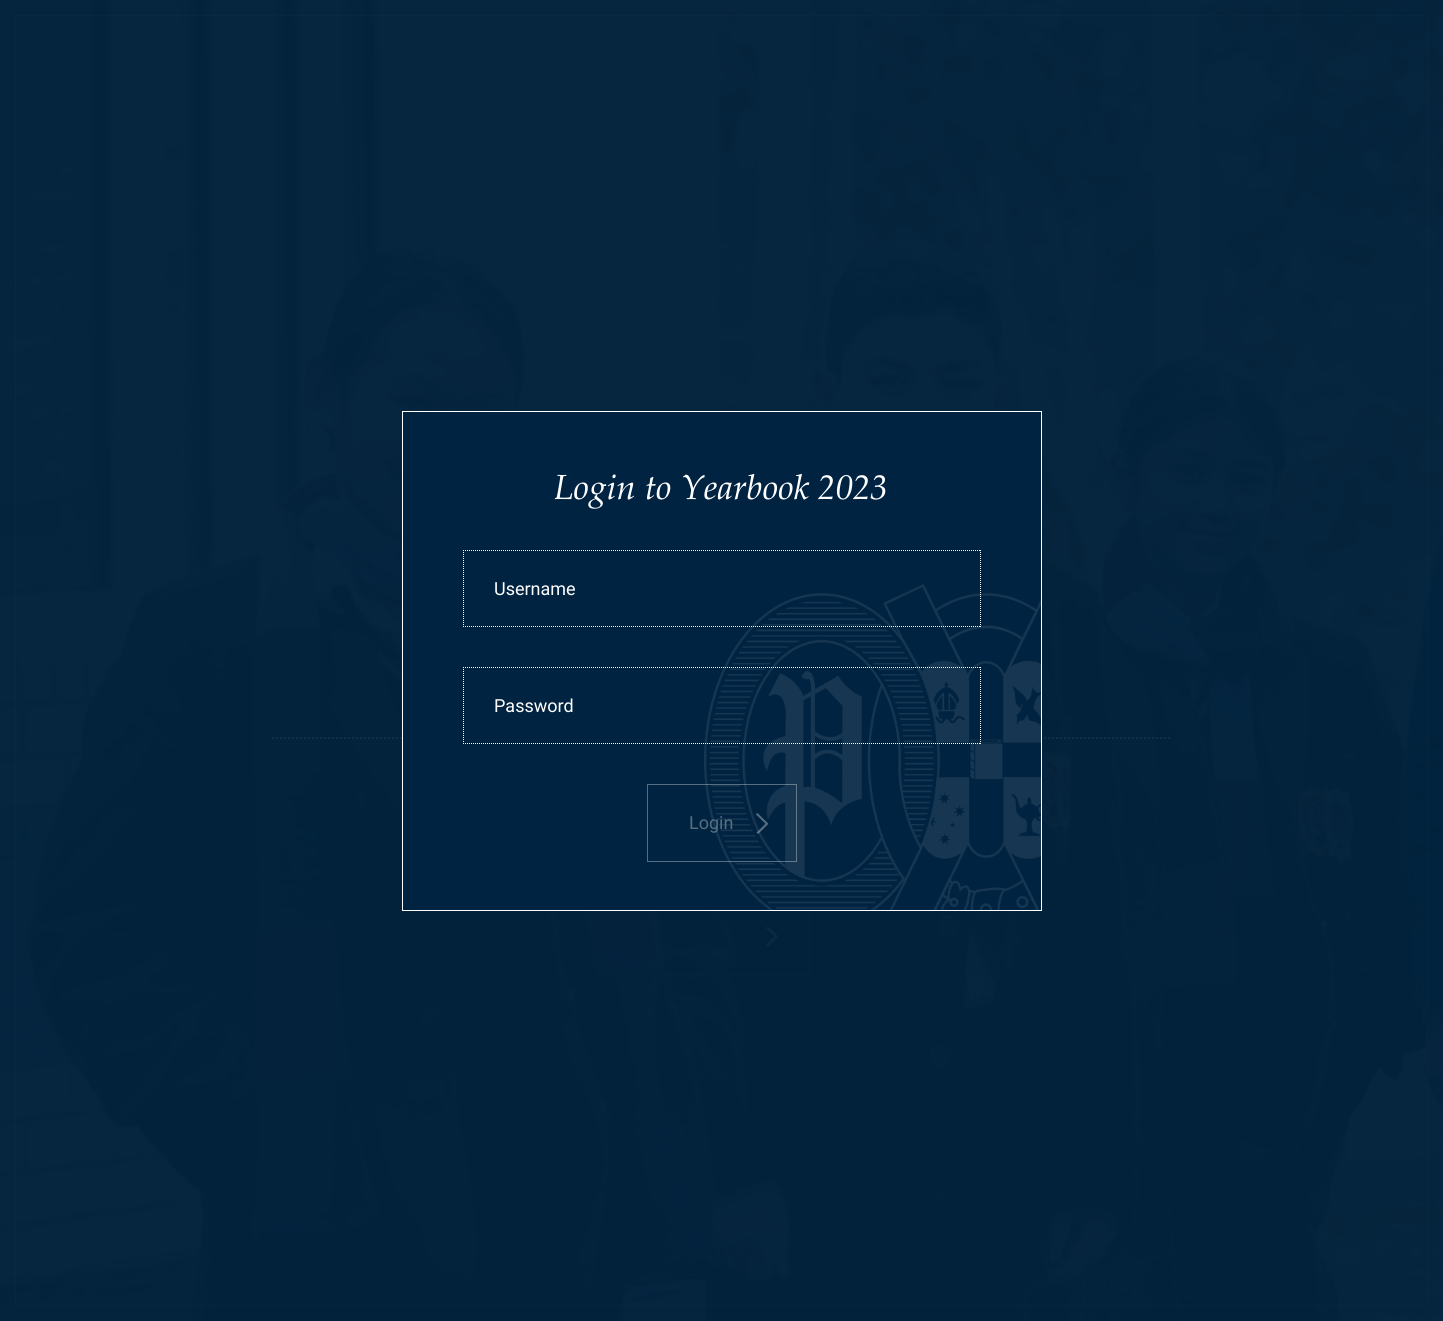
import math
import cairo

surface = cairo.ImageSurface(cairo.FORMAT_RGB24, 1443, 1321)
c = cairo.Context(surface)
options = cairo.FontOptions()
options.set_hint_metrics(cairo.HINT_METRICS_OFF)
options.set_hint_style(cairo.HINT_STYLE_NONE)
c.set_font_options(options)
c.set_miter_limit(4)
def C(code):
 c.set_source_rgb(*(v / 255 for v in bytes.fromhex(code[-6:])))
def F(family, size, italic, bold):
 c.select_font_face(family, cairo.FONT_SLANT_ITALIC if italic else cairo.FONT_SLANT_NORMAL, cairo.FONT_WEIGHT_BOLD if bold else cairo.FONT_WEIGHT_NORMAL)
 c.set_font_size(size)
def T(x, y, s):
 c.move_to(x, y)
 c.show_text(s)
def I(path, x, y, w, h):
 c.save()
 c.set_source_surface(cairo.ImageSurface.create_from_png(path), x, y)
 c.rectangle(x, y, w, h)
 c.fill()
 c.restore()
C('04233d')
c.paint()
I('1.png',0,0,1443,1321)
c.rectangle(15.5,15.5,1412,1290)
c.set_source_rgba(0.09,0.2,0.294,0.2)
c.set_line_width(1)
c.stroke()
c.new_path()
c.move_to(272,738)
c.line_to(1172,738)
c.set_source_rgba(0.09,0.2,0.294,0.8)
c.set_line_width(2)
c.set_dash([2,2])
c.stroke()
c.rectangle(633.5,897.5,176,77)
C('08243c')
c.set_line_width(1)
c.set_dash([])
c.stroke()
I('2.png',766,926,12,21)
C('002341')
c.rectangle(402.5,411.5,639,499)
c.fill_preserve()
C('ffffff')
c.stroke()
F('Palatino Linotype',35,1,0)
T(554,499,'Login to Yearbook 2023')
c.new_path()
c.move_to(463,550.5)
c.line_to(981,550.5)
c.set_dash([1,1])
c.stroke()
I('4.png',704,584,337,326)
c.new_path()
c.move_to(980.5,550)
c.line_to(980.5,627)
c.stroke()
c.new_path()
c.move_to(463,626.5)
c.line_to(981,626.5)
c.stroke()
c.new_path()
c.move_to(463.5,550)
c.line_to(463.5,627)
c.stroke()
F('Roboto',18,0,0)
T(494,595,'Username')
c.new_path()
c.move_to(463,667.5)
c.line_to(981,667.5)
c.stroke()
c.new_path()
c.move_to(980.5,667)
c.line_to(980.5,744)
c.stroke()
c.new_path()
c.move_to(463,743.5)
c.line_to(981,743.5)
c.stroke()
c.new_path()
c.move_to(463.5,667)
c.line_to(463.5,744)
c.stroke()
T(494,712,'Password')
I('3.png',756,813,12,21)
c.rectangle(647.5,784.5,149,77)
c.set_source_rgba(1,1,1,0.34)
c.set_dash([])
c.stroke()
C('586f82')
T(689,829,'Login')
surface.write_to_png('o.png')
